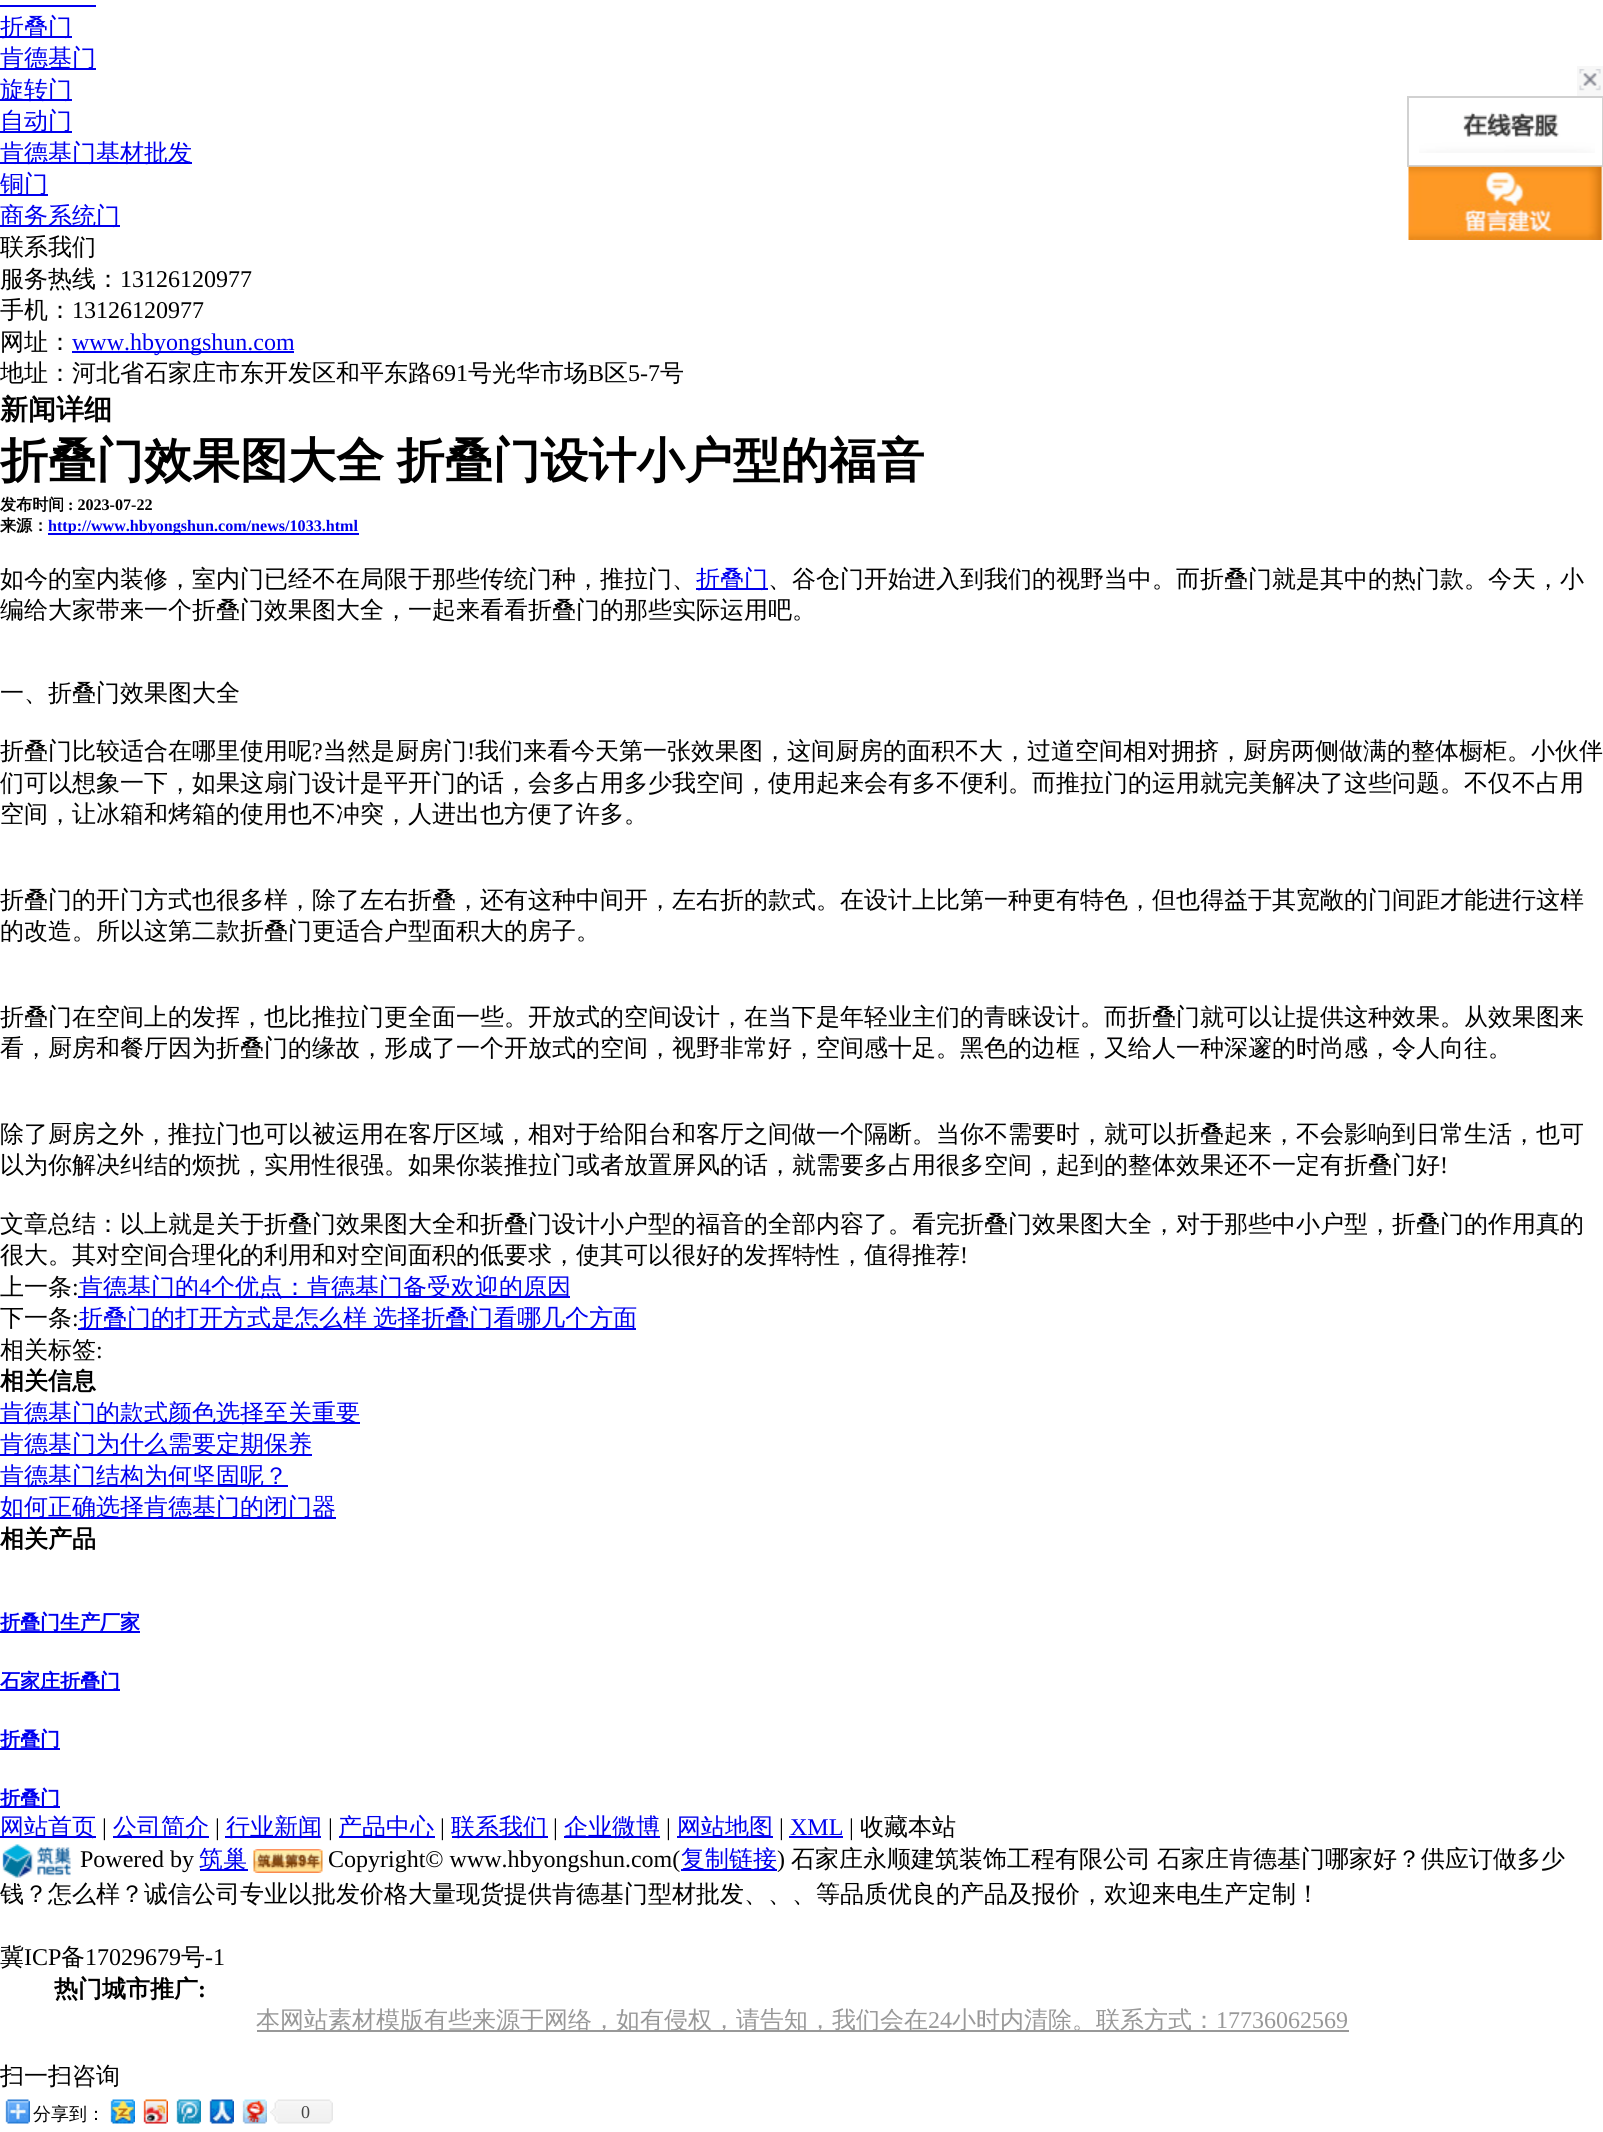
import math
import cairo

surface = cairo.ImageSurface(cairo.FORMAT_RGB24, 1603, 2132)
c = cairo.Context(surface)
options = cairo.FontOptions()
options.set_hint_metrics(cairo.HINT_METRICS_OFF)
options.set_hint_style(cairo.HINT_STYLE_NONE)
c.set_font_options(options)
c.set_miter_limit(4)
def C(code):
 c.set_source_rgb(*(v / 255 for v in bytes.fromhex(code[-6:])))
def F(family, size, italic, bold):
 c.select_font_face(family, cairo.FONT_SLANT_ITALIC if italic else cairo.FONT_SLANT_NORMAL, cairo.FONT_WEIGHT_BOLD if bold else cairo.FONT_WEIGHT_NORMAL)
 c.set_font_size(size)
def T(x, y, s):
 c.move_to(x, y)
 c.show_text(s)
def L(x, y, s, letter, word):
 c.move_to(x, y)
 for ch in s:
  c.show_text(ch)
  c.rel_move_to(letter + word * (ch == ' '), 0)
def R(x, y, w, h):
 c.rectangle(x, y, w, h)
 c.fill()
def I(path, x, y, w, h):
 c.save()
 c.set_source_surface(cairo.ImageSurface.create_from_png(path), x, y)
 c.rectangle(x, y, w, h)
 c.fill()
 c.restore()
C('ffffff')
c.paint()
C('0000ee')
R(0,5,96,2)
R(0,36,72,2)
F('WenQuanYi Zen Hei Medium',24,0,0)
T(0,35,'折叠门')
R(0,68,96,2)
T(0,66,'肯德基门')
R(0,99,72,2)
T(0,98,'旋转门')
R(0,131,72,2)
T(0,129,'自动门')
R(0,162,192,2)
T(0,161,'肯德基门基材批发')
R(0,194,48,2)
T(0,192,'铜门')
R(0,225,120,2)
T(0,224,'商务系统门')
C('000000')
T(0,255,'联系我们')
T(0,287,'服务热线：')
F('Liberation Serif',24,0,0)
T(120,287,'13126120977')
F('WenQuanYi Zen Hei Medium',24,0,0)
T(0,318,'手机：')
F('Liberation Serif',24,0,0)
T(72,318,'13126120977')
F('WenQuanYi Zen Hei Medium',24,0,0)
T(0,350,'网址：')
C('0000ee')
R(72,351,222,2)
F('Liberation Serif',24,0,0)
T(72,350,'www.hbyongshun.com')
F('WenQuanYi Zen Hei Medium',24,0,0)
C('000000')
T(0,381,'地址：河北省石家庄市东开发区和平东路')
F('Liberation Serif',24,0,0)
T(432,381,'691')
F('WenQuanYi Zen Hei Medium',24,0,0)
T(468,381,'号光华市场')
F('Liberation Serif',24,0,0)
T(588,381,'B')
F('WenQuanYi Zen Hei Medium',24,0,0)
T(604,381,'区')
F('Liberation Serif',24,0,0)
T(628,381,'5-7')
F('WenQuanYi Zen Hei Medium',24,0,0)
T(660,381,'号')
F('WenQuanYi Zen Hei',28,0,1)
T(0,419,'新闻详细')
F('WenQuanYi Zen Hei',48,0,1)
L(0,477,'折叠门效果图大全 折叠门设计小户型的福音',0,-2)
F('WenQuanYi Zen Hei',16.1,0,1)
T(0,510,'发布时间')
F('Liberation Serif',16.1,0,1)
T(68,510,': 2023-07-22')
F('WenQuanYi Zen Hei',16.1,0,1)
T(0,531,'来源：')
C('0000ee')
R(48,533,311,2)
F('Liberation Serif',16.1,0,1)
T(48,531,'http://www.hbyongshun.com/news/1033.html')
F('WenQuanYi Zen Hei Medium',24,0,0)
C('000000')
T(0,587,'如今的室内装修，室内门已经不在局限于那些传统门种，推拉门、')
C('0000ee')
R(696,588,72,2)
T(696,587,'折叠门')
C('000000')
T(768,587,'、谷仓门开始进入到我们的视野当中。而折叠门就是其中的热门款。今天，小')
T(0,618,'编给大家带来一个折叠门效果图大全，一起来看看折叠门的那些实际运用吧。')
T(0,701,'一、折叠门效果图大全')
T(0,759,'折叠门比较适合在哪里使用呢')
F('Liberation Serif',24,0,0)
T(312,759,'?')
F('WenQuanYi Zen Hei Medium',24,0,0)
T(323,759,'当然是厨房门')
F('Liberation Serif',24,0,0)
T(467,759,'!')
F('WenQuanYi Zen Hei Medium',24,0,0)
T(475,759,'我们来看今天第一张效果图，这间厨房的面积不大，过道空间相对拥挤，厨房两侧做满的整体橱柜。小伙伴')
T(0,791,'们可以想象一下，如果这扇门设计是平开门的话，会多占用多少我空间，使用起来会有多不便利。而推拉门的运用就完美解决了这些问题。不仅不占用')
T(0,822,'空间，让冰箱和烤箱的使用也不冲突，人进出也方便了许多。')
T(0,908,'折叠门的开门方式也很多样，除了左右折叠，还有这种中间开，左右折的款式。在设计上比第一种更有特色，但也得益于其宽敞的门间距才能进行这样')
T(0,939,'的改造。所以这第二款折叠门更适合户型面积大的房子。')
T(0,1025,'折叠门在空间上的发挥，也比推拉门更全面一些。开放式的空间设计，在当下是年轻业主们的青睐设计。而折叠门就可以让提供这种效果。从效果图来')
T(0,1056,'看，厨房和餐厅因为折叠门的缘故，形成了一个开放式的空间，视野非常好，空间感十足。黑色的边框，又给人一种深邃的时尚感，令人向往。')
T(0,1142,'除了厨房之外，推拉门也可以被运用在客厅区域，相对于给阳台和客厅之间做一个隔断。当你不需要时，就可以折叠起来，不会影响到日常生活，也可')
T(0,1173,'以为你解决纠结的烦扰，实用性很强。如果你装推拉门或者放置屏风的话，就需要多占用很多空间，起到的整体效果还不一定有折叠门好')
F('Liberation Serif',24,0,0)
T(1440,1173,'!')
F('WenQuanYi Zen Hei Medium',24,0,0)
T(0,1232,'文章总结：以上就是关于折叠门效果图大全和折叠门设计小户型的福音的全部内容了。看完折叠门效果图大全，对于那些中小户型，折叠门的作用真的')
T(0,1263,'很大。其对空间合理化的利用和对空间面积的低要求，使其可以很好的发挥特性，值得推荐')
F('Liberation Serif',24,0,0)
T(960,1263,'!')
F('WenQuanYi Zen Hei Medium',24,0,0)
T(0,1295,'上一条')
F('Liberation Serif',24,0,0)
T(72,1295,':')
C('0000ee')
R(78,1296,492,2)
F('WenQuanYi Zen Hei Medium',24,0,0)
T(79,1295,'肯德基门的')
F('Liberation Serif',24,0,0)
T(199,1295,'4')
F('WenQuanYi Zen Hei Medium',24,0,0)
T(211,1295,'个优点：肯德基门备受欢迎的原因')
C('000000')
T(0,1326,'下一条')
F('Liberation Serif',24,0,0)
T(72,1326,':')
C('0000ee')
R(78,1328,558,2)
F('WenQuanYi Zen Hei Medium',24,0,0)
L(79,1326,'折叠门的打开方式是怎么样 选择折叠门看哪几个方面',0,-1)
C('000000')
T(0,1358,'相关标签')
F('Liberation Serif',24,0,0)
T(96,1358,':')
F('WenQuanYi Zen Hei',24,0,1)
T(0,1389,'相关信息')
C('0000ee')
R(0,1422,360,2)
F('WenQuanYi Zen Hei Medium',24,0,0)
T(0,1421,'肯德基门的款式颜色选择至关重要')
R(0,1454,312,2)
T(0,1452,'肯德基门为什么需要定期保养')
R(0,1485,288,2)
T(0,1484,'肯德基门结构为何坚固呢？')
R(0,1517,336,2)
T(0,1515,'如何正确选择肯德基门的闭门器')
F('WenQuanYi Zen Hei',24,0,1)
C('000000')
T(0,1547,'相关产品')
C('0000ee')
R(0,1631,140,2)
F('WenQuanYi Zen Hei',20,0,1)
T(0,1629,'折叠门生产厂家')
R(0,1689,120,2)
T(0,1688,'石家庄折叠门')
R(0,1748,60,2)
T(0,1746,'折叠门')
R(0,1806,60,2)
T(0,1805,'折叠门')
C('f7f7f7')
R(1577,66,26,30)
I('1.png',1579,69,22,22)
I('2.png',1419,112,176,41)
c.rectangle(1408,97,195,69)
C('d1d1d1')
c.stroke()
I('3.png',1408,166,195,74)
C('0000ee')
R(0,1836,96,2)
F('WenQuanYi Zen Hei Medium',24,0,0)
T(0,1835,'网站首页')
F('Liberation Serif',24,0,0)
C('000000')
T(102,1835,'|')
C('0000ee')
R(113,1836,96,2)
F('WenQuanYi Zen Hei Medium',24,0,0)
T(113,1835,'公司简介')
F('Liberation Serif',24,0,0)
C('000000')
T(215,1835,'|')
C('0000ee')
R(225,1836,96,2)
F('WenQuanYi Zen Hei Medium',24,0,0)
T(226,1835,'行业新闻')
F('Liberation Serif',24,0,0)
C('000000')
T(328,1835,'|')
C('0000ee')
R(339,1836,96,2)
F('WenQuanYi Zen Hei Medium',24,0,0)
T(338,1835,'产品中心')
F('Liberation Serif',24,0,0)
C('000000')
T(440,1835,'|')
C('0000ee')
R(452,1836,96,2)
F('WenQuanYi Zen Hei Medium',24,0,0)
T(451,1835,'联系我们')
F('Liberation Serif',24,0,0)
C('000000')
T(553,1835,'|')
C('0000ee')
R(564,1836,96,2)
F('WenQuanYi Zen Hei Medium',24,0,0)
T(564,1835,'企业微博')
F('Liberation Serif',24,0,0)
C('000000')
T(666,1835,'|')
C('0000ee')
R(677,1836,96,2)
F('WenQuanYi Zen Hei Medium',24,0,0)
T(677,1835,'网站地图')
F('Liberation Serif',24,0,0)
C('000000')
T(779,1835,'|')
C('0000ee')
T(790,1835,'XML')
R(789,1836,54,2)
C('000000')
T(849,1835,'|')
F('WenQuanYi Zen Hei Medium',24,0,0)
T(860,1835,'收藏本站')
I('4.png',2,1844,69,34)
F('Liberation Serif',24,0,0)
T(80,1867,'Powered by')
C('0000ee')
R(200,1869,48,2)
F('WenQuanYi Zen Hei Medium',24,0,0)
T(199,1867,'筑巢')
I('5.png',253,1849,70,24)
F('Liberation Serif',24,0,0)
C('000000')
T(328,1867,'Copyright© www.hbyongshun.com(')
C('0000ee')
R(681,1869,96,2)
F('WenQuanYi Zen Hei Medium',24,0,0)
T(681,1867,'复制链接')
F('Liberation Serif',24,0,0)
C('000000')
T(777,1867,')')
F('WenQuanYi Zen Hei Medium',24,0,0)
T(791,1867,'石家庄永顺建筑装饰工程有限公司')
T(1157,1867,'石家庄肯德基门哪家好？供应订做多少')
T(0,1902,'钱？怎么样？诚信公司专业以批发价格大量现货提供肯德基门型材批发、、、等品质优良的产品及报价，欢迎来电生产定制！')
T(0,1965,'冀')
F('Liberation Serif',24,0,0)
T(24,1965,'ICP')
F('WenQuanYi Zen Hei Medium',24,0,0)
T(61,1965,'备')
F('Liberation Serif',24,0,0)
T(85,1965,'17029679')
F('WenQuanYi Zen Hei Medium',24,0,0)
T(181,1965,'号')
F('Liberation Serif',24,0,0)
T(205,1965,'-1')
F('WenQuanYi Zen Hei',24,0,1)
T(54,1997,'热门城市推广')
F('Liberation Serif',24,0,1)
T(198,1997,':')
C('989898')
R(257,2030,1092,2)
F('WenQuanYi Zen Hei Medium',24,0,0)
T(256,2028,'本网站素材模版有些来源于网络，如有侵权，请告知，我们会在')
F('Liberation Serif',24,0,0)
T(928,2028,'24')
F('WenQuanYi Zen Hei Medium',24,0,0)
T(952,2028,'小时内清除。联系方式：')
F('Liberation Serif',24,0,0)
T(1216,2028,'17736062569')
F('WenQuanYi Zen Hei Medium',24,0,0)
C('000000')
T(0,2084,'扫一扫咨询')
I('6.png',5,2099,25,25)
F('WenQuanYi Zen Hei Medium',18,0,0)
T(33,2120,'分享到：')
I('7.png',110,2099,25,25)
I('8.png',143,2099,25,25)
I('9.png',176,2099,25,25)
I('10.png',209,2099,25,25)
I('11.png',242,2099,25,25)
I('12.png',270,2099,63,25)
F('Liberation Serif',18,0,0)
C('454545')
T(301,2118,'0')
surface.write_to_png('o.png')
